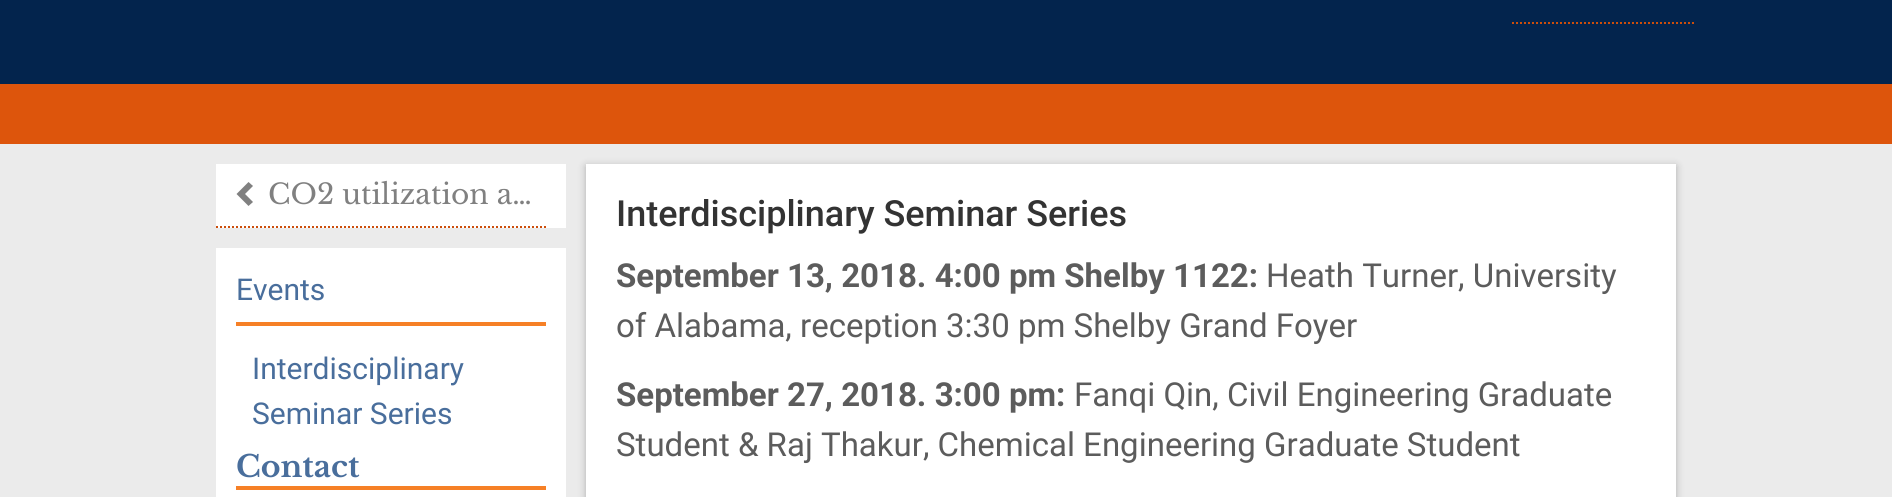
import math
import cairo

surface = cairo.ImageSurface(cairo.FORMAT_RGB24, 1892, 497)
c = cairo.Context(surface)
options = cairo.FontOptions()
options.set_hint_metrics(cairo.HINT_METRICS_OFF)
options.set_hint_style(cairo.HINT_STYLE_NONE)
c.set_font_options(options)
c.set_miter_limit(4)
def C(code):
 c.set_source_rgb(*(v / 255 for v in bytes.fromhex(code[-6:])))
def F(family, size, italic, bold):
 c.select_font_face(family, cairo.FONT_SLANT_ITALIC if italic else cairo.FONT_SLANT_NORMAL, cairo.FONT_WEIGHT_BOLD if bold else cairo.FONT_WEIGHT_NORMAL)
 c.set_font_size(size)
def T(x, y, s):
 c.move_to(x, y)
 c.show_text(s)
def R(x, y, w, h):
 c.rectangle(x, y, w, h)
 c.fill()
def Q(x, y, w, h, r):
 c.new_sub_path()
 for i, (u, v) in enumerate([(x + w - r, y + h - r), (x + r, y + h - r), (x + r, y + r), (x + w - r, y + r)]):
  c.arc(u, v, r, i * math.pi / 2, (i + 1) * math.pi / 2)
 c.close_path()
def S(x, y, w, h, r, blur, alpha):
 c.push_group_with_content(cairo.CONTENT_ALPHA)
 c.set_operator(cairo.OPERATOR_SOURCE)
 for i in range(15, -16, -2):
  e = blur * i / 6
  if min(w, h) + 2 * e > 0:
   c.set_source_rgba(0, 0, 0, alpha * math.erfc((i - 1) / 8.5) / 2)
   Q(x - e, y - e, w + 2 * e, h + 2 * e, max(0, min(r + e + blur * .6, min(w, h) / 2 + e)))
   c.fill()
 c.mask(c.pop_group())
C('03244d')
c.paint()
c.new_path()
c.move_to(1512,23)
c.line_to(1696,23)
C('cc4e0b')
c.set_dash([2,2])
c.stroke()
C('ebebeb')
R(0,144,1892,353)
C('dd550c')
R(0,84,1892,60)
C('ffffff')
R(216,164,350,64)
c.new_path()
c.move_to(216,227)
c.line_to(546,227)
C('cc4e0b')
c.stroke()
C('808080')
c.new_path()
c.move_to(253,186)
c.line_to(245,194)
c.line_to(253,202)
c.line_to(248.5,206)
c.line_to(236.5,194)
c.line_to(248.5,182)
c.close_path()
c.fill()
F('Libre Baskerville',28,0,0)
T(268,204,'CO2 utilization a…')
C('ffffff')
R(216,248,350,249)
F('Roboto',30,0,0)
C('496e9c')
T(236,300,'Events')
C('f68026')
R(236,322,310,4)
C('496e9c')
T(252,379,'Interdisciplinary')
T(252,424,'Seminar Series')
C('f68026')
R(236,486,310,4)
F('Libre Baskerville',30,0,1)
C('496e9c')
T(236,477,'Contact')
C('000000')
S(586,166,1090,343,0,4,.26)
C('ffffff')
R(586,164,1090,333)
F('Roboto Medium',36,0,0)
C('333333')
T(616,226,'Interdisciplinary Seminar Series')
F('Roboto',33,0,1)
C('5c5c5c')
T(616,287,'September 13, 2018. 4:00 pm Shelby 1122:')
F('Roboto',33,0,0)
T(1266,287,'Heath Turner, University')
T(616,337,'of Alabama, reception 3:30 pm Shelby Grand Foyer')
F('Roboto',33,0,1)
T(616,406,'September 27, 2018. 3:00 pm:')
F('Roboto',33,0,0)
T(1074,406,'Fanqi Qin, Civil Engineering Graduate')
T(616,456,'Student & Raj Thakur, Chemical Engineering Graduate Student')
surface.write_to_png('o.png')
